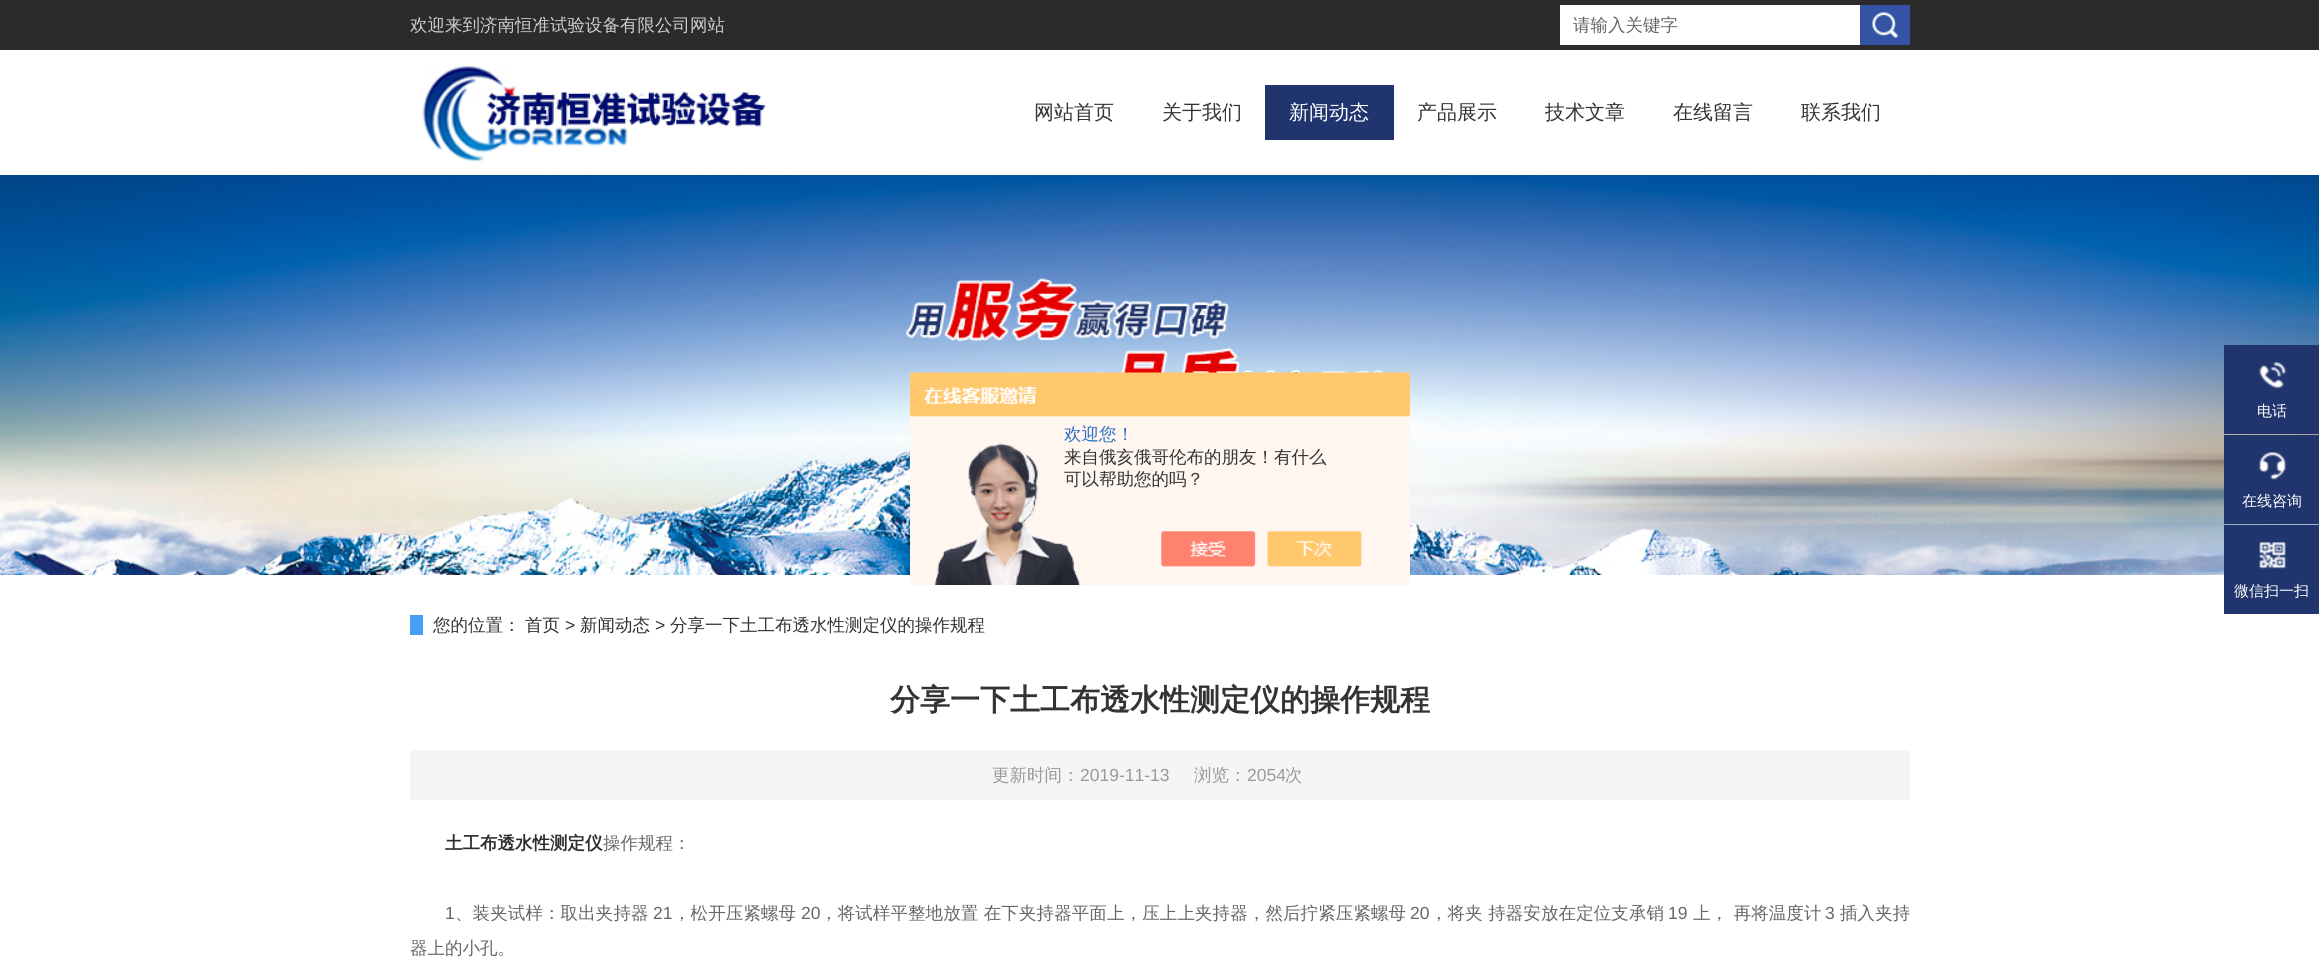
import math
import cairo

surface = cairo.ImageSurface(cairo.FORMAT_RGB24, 2319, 957)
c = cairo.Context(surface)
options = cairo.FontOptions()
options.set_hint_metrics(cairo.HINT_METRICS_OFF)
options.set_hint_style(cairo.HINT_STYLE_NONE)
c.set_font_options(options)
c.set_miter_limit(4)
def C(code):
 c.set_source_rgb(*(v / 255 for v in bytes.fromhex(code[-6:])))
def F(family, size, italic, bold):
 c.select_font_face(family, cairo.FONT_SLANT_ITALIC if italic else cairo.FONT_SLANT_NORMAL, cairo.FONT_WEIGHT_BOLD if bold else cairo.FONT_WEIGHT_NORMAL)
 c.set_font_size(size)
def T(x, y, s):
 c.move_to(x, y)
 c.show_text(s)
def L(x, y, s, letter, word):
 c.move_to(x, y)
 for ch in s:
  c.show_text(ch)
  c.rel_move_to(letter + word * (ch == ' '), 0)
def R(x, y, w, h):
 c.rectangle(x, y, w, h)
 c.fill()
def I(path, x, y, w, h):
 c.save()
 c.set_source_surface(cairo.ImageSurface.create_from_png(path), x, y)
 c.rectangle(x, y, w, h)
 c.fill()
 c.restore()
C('ffffff')
c.paint()
C('2b2b2b')
R(0,0,2319,50)
F('WenQuanYi Zen Hei Medium',17.5,0,0)
C('cccccc')
T(410,31,'欢迎来到济南恒准试验设备有限公司网站')
C('ffffff')
R(1560,5,300,40)
C('666666')
T(1573,31,'请输入关键字')
C('3453a5')
R(1860,5,50,40)
I('1.png',1872,12,26,26)
I('2.png',422,66,345,96)
F('WenQuanYi Zen Hei Medium',20,0,0)
C('333333')
T(1034,119,'网站首页')
T(1162,119,'关于我们')
C('20356e')
R(1265,85,129,55)
C('ffffff')
T(1289,119,'新闻动态')
C('333333')
T(1417,119,'产品展示')
T(1545,119,'技术文章')
T(1673,119,'在线留言')
T(1801,119,'联系我们')
I('3.png',0,175,2319,400)
I('4.png',910,372,500,213)
F('WenQuanYi Zen Hei Medium',17.5,0,0)
C('2e6ec6')
T(1064,440,'欢迎您！')
C('333333')
T(1064,463,'来自俄亥俄哥伦布的朋友！有什么')
T(1064,485,'可以帮助您的吗？')
C('20356e')
R(2224,345,95,89)
I('5.png',2259,362,27,27)
F('WenQuanYi Zen Hei Medium',15,0,0)
C('ffffff')
T(2257,416,'电话')
C('20356e')
R(2224,435,95,89)
I('6.png',2259,452,27,28)
C('ffffff')
T(2242,506,'在线咨询')
C('20356e')
R(2224,525,95,89)
I('7.png',2259,542,27,27)
C('ffffff')
T(2234,596,'微信扫一扫')
F('WenQuanYi Zen Hei Medium',17.5,0,0)
C('333333')
T(433,631,'您的位置：')
C('469ff7')
R(410,615,13,20)
C('2d2d2e')
T(525,631,'首页')
F('Liberation Sans',17.5,0,0)
C('333333')
T(565,631,'>')
F('WenQuanYi Zen Hei Medium',17.5,0,0)
C('2d2d2e')
T(580,631,'新闻动态')
F('Liberation Sans',17.5,0,0)
C('333333')
T(655,631,'>')
F('WenQuanYi Zen Hei Medium',17.5,0,0)
T(670,631,'分享一下土工布透水性测定仪的操作规程')
F('WenQuanYi Zen Hei',30,0,1)
T(890,710,'分享一下土工布透水性测定仪的操作规程')
C('f5f5f5')
R(410,750,1500,50)
F('WenQuanYi Zen Hei Medium',17.5,0,0)
C('999999')
T(992,781,'更新时间：')
F('Liberation Sans',17.5,0,0)
T(1080,781,'2019-11-13')
F('WenQuanYi Zen Hei Medium',17.5,0,0)
T(1194,781,'浏览：')
F('Liberation Sans',17.5,0,0)
T(1247,781,'2054')
F('WenQuanYi Zen Hei Medium',17.5,0,0)
T(1285,781,'次')
F('WenQuanYi Zen Hei',17.5,0,1)
C('2d2d2e')
T(445,849,'土工布透水性测定仪')
F('WenQuanYi Zen Hei Medium',17.5,0,0)
C('666666')
T(603,849,'操作规程：')
F('Liberation Sans',17.5,0,0)
L(445,919,'1',.1,0)
F('WenQuanYi Zen Hei Medium',17.5,0,0)
L(455,919,'、装夹试样：取出夹持器',.1,0)
F('Liberation Sans',17.5,0,0)
L(653,919,'21',.1,0)
F('WenQuanYi Zen Hei Medium',17.5,0,0)
L(673,919,'，松开压紧螺母',.1,0)
F('Liberation Sans',17.5,0,0)
L(801,919,'20',.1,0)
F('WenQuanYi Zen Hei Medium',17.5,0,0)
L(820,919,'，将试样平整地放置 在下夹持器平面上，压上上夹持器，然后拧紧压紧螺母',.1,0)
F('Liberation Sans',17.5,0,0)
L(1410,919,'20',.1,0)
F('WenQuanYi Zen Hei Medium',17.5,0,0)
L(1430,919,'，将夹 持器安放在定位支承销',.1,0)
F('Liberation Sans',17.5,0,0)
L(1668,919,'19',.1,0)
F('WenQuanYi Zen Hei Medium',17.5,0,0)
L(1693,919,'上， 再将温度计',.1,0)
F('Liberation Sans',17.5,0,0)
L(1825,919,'3',.1,0)
F('WenQuanYi Zen Hei Medium',17.5,0,0)
L(1840,919,'插入夹持',.1,0)
T(410,954,'器上的小孔。')
surface.write_to_png('o.png')
